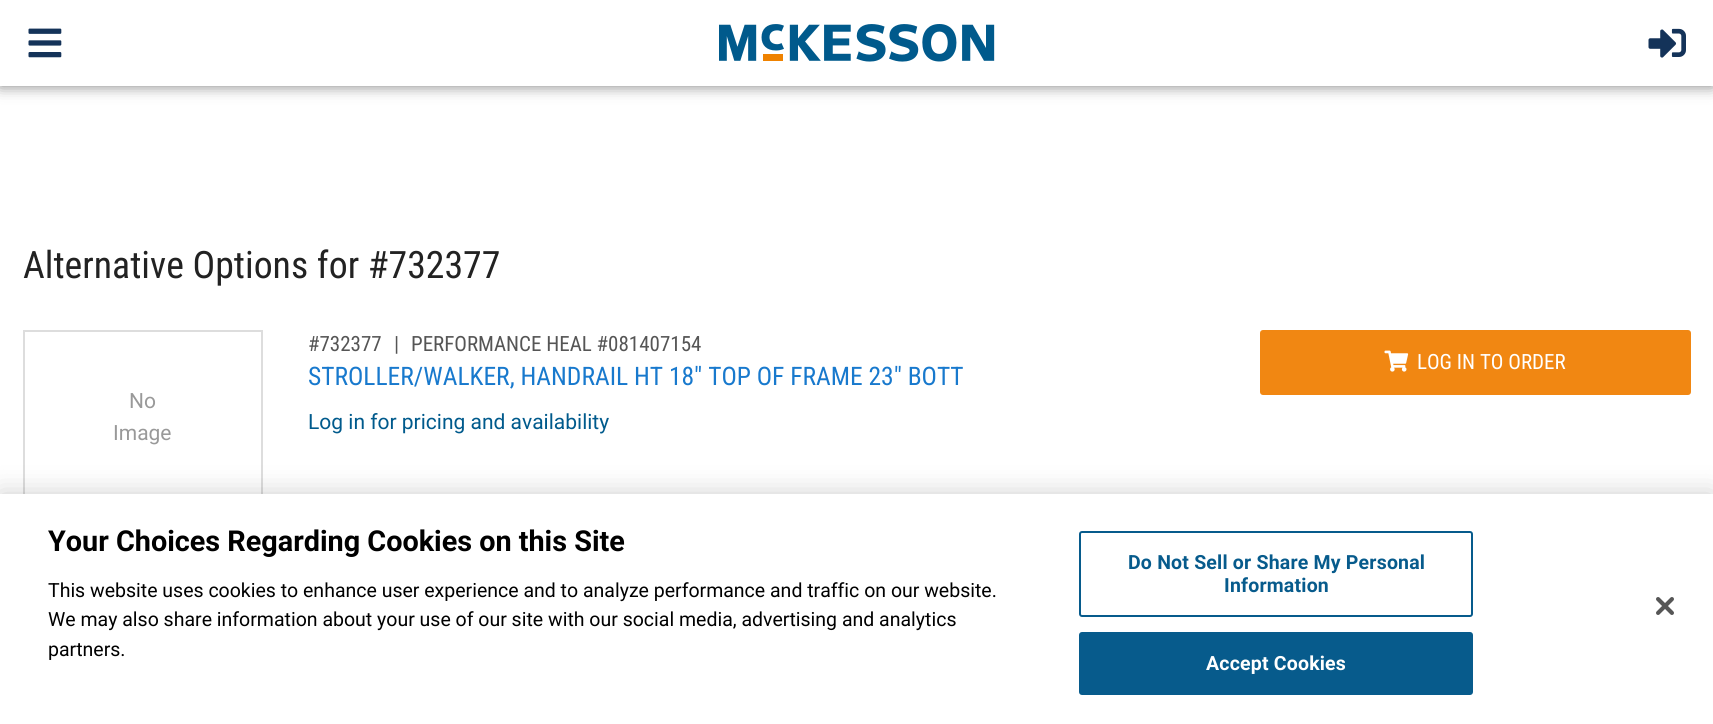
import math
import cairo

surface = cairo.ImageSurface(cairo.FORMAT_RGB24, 1713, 724)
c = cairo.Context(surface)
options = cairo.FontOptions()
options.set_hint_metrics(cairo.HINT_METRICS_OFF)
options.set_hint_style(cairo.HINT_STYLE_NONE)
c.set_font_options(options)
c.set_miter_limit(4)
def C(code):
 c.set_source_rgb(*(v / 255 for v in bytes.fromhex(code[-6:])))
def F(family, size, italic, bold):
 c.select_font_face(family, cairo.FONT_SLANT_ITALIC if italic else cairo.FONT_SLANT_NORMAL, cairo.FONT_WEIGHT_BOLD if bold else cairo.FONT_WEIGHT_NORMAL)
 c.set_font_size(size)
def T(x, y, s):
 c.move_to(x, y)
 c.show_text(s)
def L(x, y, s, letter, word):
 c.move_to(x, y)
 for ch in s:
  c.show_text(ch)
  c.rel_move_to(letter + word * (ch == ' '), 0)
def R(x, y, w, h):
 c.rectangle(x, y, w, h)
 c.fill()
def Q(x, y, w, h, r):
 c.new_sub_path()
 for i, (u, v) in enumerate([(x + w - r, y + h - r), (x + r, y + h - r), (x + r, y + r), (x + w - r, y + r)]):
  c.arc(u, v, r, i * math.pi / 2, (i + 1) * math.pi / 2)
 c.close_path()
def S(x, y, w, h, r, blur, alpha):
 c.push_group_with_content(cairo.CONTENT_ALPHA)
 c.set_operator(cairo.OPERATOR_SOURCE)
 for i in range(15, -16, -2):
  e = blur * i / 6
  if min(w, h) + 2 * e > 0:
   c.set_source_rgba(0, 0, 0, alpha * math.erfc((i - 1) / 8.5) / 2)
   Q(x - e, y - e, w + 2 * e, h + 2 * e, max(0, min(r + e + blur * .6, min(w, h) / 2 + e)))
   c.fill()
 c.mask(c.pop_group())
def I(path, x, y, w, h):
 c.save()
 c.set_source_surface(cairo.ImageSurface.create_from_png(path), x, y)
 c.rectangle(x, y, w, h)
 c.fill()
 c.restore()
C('ffffff')
c.paint()
C('000000')
S(0,0,1713,86,0,7.5,.5)
C('ffffff')
R(0,0,1713,86)
I('1.png',28,28,34,30)
I('2.png',719,24,276,38)
I('3.png',1648,28,38,30)
F('Roboto Condensed',37.75,0,0)
C('222222')
T(23,278,'Alternative Options for #732377')
c.rectangle(24,331,238,174)
C('dddddd')
c.stroke()
F('Roboto',21,0,0)
C('999999')
T(129,408,'No')
T(113,440,'Image')
F('Roboto Condensed',21,0,0)
C('555555')
T(308,351,'#732377')
T(394,351,'|')
T(411,351,'PERFORMANCE HEAL #081407154')
F('Roboto Condensed',25.5,0,0)
C('1879cd')
T(308,385,'STROLLER/WALKER, HANDRAIL HT 18" TOP OF FRAME 23" BOTT')
F('Roboto',21,0,0)
C('005a8c')
T(308,429,'Log in for pricing and availability')
C('f18712')
Q(1261,331,429,63,2)
c.fill_preserve()
c.stroke()
I('4.png',1384,350,25,22)
F('Roboto Condensed',21,0,0)
C('ffffff')
T(1417,369,'LOG IN TO ORDER')
C('000000')
S(0,494,1713,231,0,13.5,.2)
C('ffffff')
R(0,494,1713,230)
F('Roboto',28.8,0,1)
C('000000')
T(48,551,'Your Choices Regarding Cookies on this Site')
F('Roboto',19.5,0,0)
T(48,597,'This website uses cookies to enhance user experience and to analyze performance and traffic on our website.')
T(48,626,'We may also share information about your use of our site with our social media, advertising and analytics')
T(48,656,'partners.')
Q(1080,532,392,84,2)
C('075b8c')
c.stroke()
F('Roboto',19.5,0,1)
L(1128,569,'Do Not Sell or Share My Personal',.2,0)
L(1224,592,'Information',.2,0)
Q(1080,633,392,61,2)
c.fill_preserve()
c.stroke()
C('ffffff')
L(1206,670,'Accept Cookies',.2,0)
I('5.png',1656,597,18,18)
surface.write_to_png('o.png')
